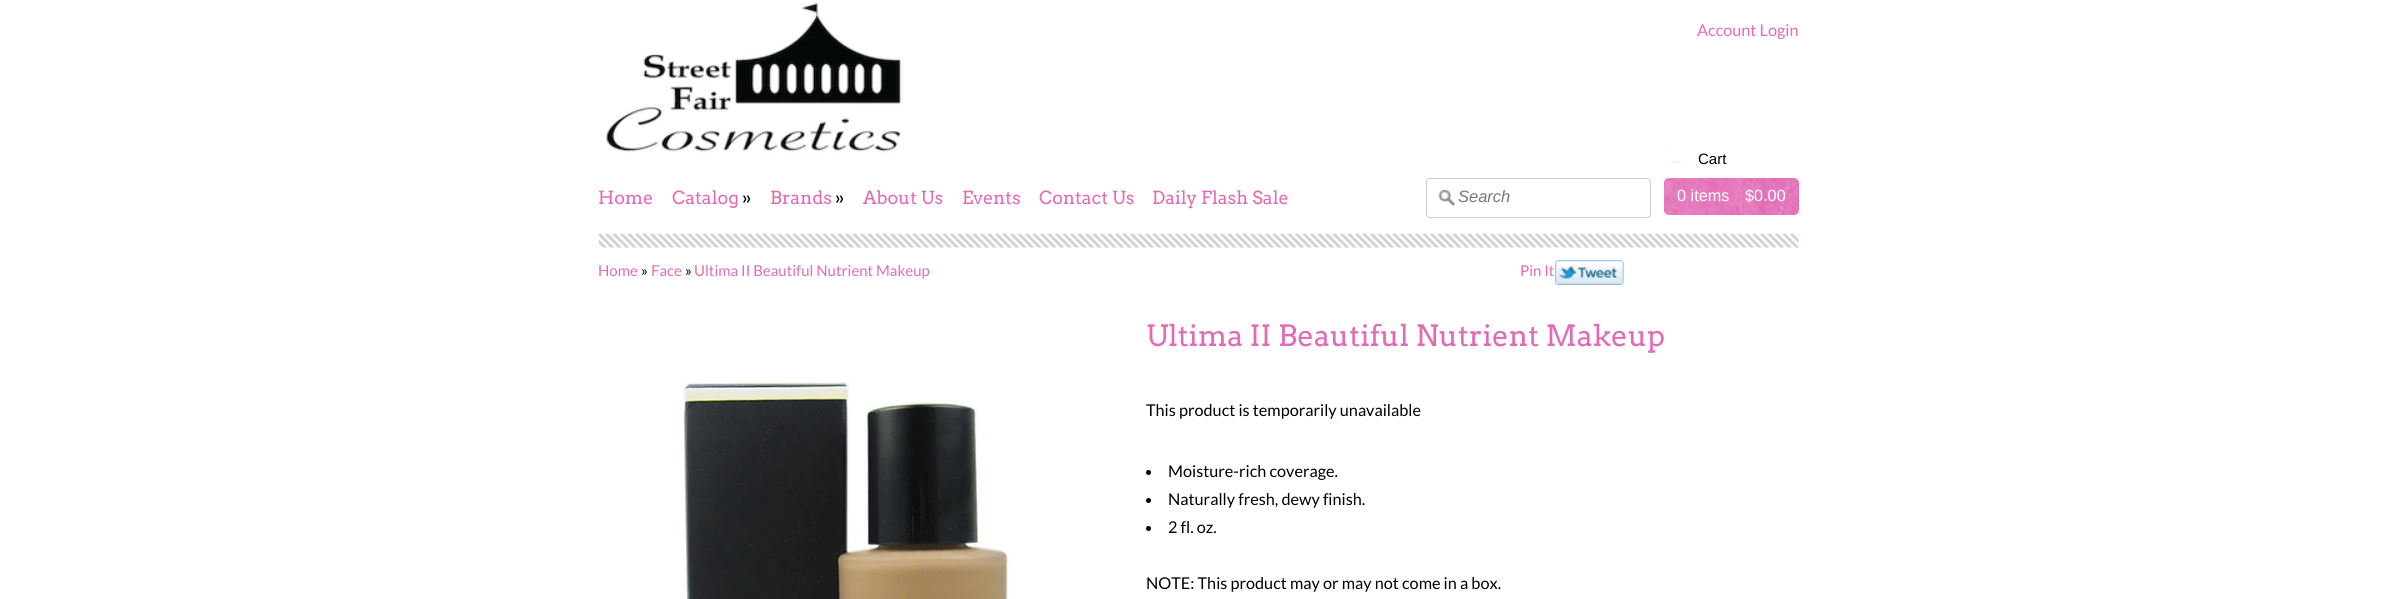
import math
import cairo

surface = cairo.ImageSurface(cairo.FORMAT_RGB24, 2396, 599)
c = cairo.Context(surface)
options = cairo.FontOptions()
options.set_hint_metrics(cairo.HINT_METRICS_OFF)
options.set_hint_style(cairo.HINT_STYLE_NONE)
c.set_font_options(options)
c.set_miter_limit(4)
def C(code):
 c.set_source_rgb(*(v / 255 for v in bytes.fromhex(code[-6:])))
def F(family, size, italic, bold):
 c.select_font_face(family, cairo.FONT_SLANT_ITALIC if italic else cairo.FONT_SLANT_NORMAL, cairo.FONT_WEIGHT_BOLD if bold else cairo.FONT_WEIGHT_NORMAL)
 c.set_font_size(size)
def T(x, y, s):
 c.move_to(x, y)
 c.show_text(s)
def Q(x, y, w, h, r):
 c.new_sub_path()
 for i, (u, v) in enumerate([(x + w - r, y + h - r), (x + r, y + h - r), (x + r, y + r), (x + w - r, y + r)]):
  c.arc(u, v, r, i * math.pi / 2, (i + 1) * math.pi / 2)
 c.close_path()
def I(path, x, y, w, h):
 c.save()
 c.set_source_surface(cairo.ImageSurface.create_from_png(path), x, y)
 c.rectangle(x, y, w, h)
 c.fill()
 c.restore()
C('ffffff')
c.paint()
I('1.png',606,2,298,153)
F('Lato',16.25,0,0)
C('e26bb5')
T(1697,36,'Account Login')
I('2.png',598,233,1201,15)
F('Arvo',18,0,0)
T(598,204,'Home')
T(672,204,'Catalog')
C('000000')
T(742,204,'»')
C('e26bb5')
T(770,204,'Brands')
C('000000')
T(835,204,'»')
C('e26bb5')
T(863,204,'About Us')
T(962,204,'Events')
T(1039,204,'Contact Us')
T(1152,204,'Daily Flash Sale')
I('3.png',1438,190,17,17)
Q(1426.5,178.5,224,39,3.5)
C('cccccc')
c.set_line_width(1)
c.stroke()
F('Liberation Sans',16.5,1,0)
C('777777')
T(1458,202,'Search')
C('e26bb5')
Q(1664,178,135,37,5)
c.fill()
I('4.png',1665,151,16,16)
F('Liberation Sans',15,0,0)
C('000000')
T(1698,164,'Cart')
I('5.png',1664,178,135,37)
F('Liberation Sans',16.25,0,0)
C('ffffff')
T(1677,201,'0 items')
T(1745,201,'$0.00')
F('Lato',15,0,0)
C('e26bb5')
T(598,276,'Home')
C('000000')
T(641,276,'»')
C('e26bb5')
T(651,276,'Face')
C('000000')
T(685,276,'»')
C('e26bb5')
T(694,276,'Ultima II Beautiful Nutrient Makeup')
T(1520,276,'Pin It')
I('6.png',1555,260,69,25)
I('7.png',683,381,327,218)
F('Arvo',29.25,0,0)
T(1146,346,'Ultima II Beautiful Nutrient Makeup')
F('Lato',16.25,0,0)
C('000000')
T(1146,416,'This product is temporarily unavailable')
c.new_path()
c.arc(1148.5,472.5,2.5,0,2 * math.pi)
c.fill()
T(1168,477,'Moisture-rich coverage.')
c.new_path()
c.arc(1148.5,500.5,2.5,0,2 * math.pi)
c.fill()
T(1168,505,'Naturally fresh, dewy finish.')
c.new_path()
c.arc(1148.5,528.5,2.5,0,2 * math.pi)
c.fill()
T(1168,533,'2 fl. oz.')
T(1146,589,'NOTE: This product may or may not come in a box.')
surface.write_to_png('o.png')
